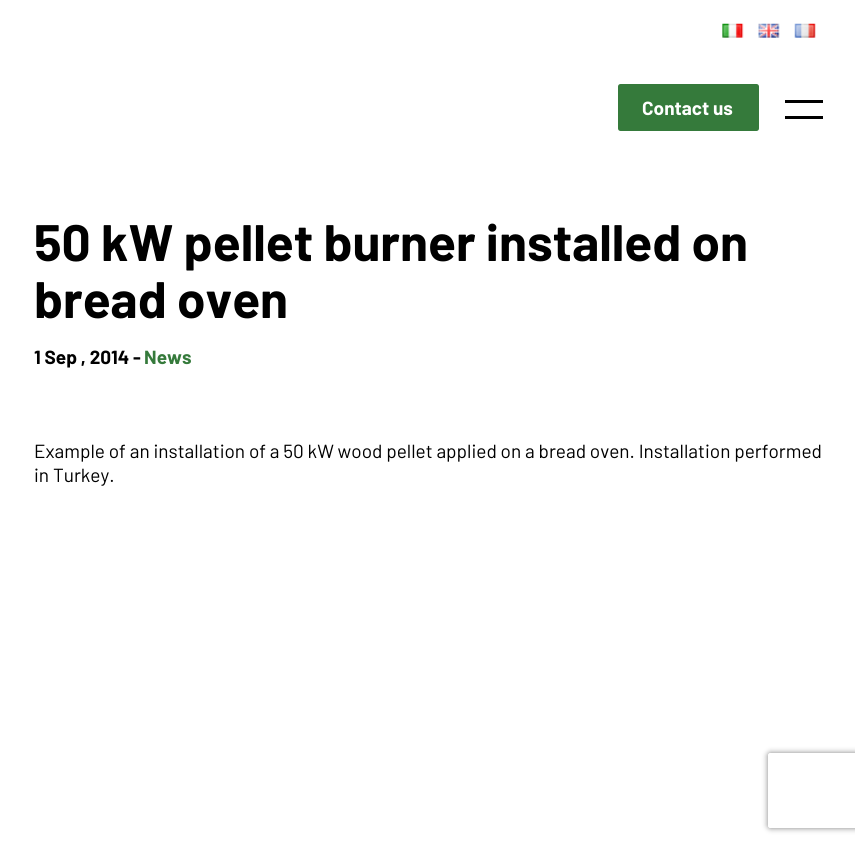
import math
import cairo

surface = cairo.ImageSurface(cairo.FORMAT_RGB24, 855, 844)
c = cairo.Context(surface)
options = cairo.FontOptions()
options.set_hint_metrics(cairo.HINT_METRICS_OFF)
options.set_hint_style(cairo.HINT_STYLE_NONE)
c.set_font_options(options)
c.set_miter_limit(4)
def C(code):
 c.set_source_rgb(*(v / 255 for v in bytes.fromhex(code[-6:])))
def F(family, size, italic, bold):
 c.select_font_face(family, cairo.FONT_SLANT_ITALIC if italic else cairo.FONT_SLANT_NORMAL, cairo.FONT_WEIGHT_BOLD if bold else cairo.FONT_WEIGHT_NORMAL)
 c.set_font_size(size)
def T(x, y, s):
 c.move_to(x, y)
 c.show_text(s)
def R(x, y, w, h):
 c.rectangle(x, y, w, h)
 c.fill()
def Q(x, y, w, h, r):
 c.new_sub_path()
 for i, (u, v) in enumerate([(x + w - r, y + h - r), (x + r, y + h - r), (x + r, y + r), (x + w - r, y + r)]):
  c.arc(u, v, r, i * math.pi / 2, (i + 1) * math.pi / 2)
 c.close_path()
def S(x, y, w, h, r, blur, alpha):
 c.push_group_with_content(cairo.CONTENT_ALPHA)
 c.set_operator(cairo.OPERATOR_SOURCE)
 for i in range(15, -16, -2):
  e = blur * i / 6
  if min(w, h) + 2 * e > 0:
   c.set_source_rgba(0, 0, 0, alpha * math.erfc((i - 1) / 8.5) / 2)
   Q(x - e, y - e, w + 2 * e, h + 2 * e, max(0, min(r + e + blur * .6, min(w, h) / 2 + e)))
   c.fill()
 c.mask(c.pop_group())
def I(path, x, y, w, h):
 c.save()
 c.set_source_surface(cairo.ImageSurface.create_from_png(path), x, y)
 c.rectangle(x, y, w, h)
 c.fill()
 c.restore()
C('ffffff')
c.paint()
I('1.png',722,23,22,15)
I('2.png',758,23,22,15)
I('3.png',794,23,22,15)
C('357a3b')
Q(618,84,141,47,2.5)
c.fill()
F('Barlow',19,0,1)
C('ffffff')
T(642,115,'Contact us')
C('000000')
R(785,100,38,3)
R(785,116,38,3)
F('Barlow',51.25,0,1)
T(34,261,'50 kW pellet burner installed on')
T(34,318,'bread oven')
F('Barlow',19,0,1)
T(34,364,'1 Sep , 2014 -')
C('357a3b')
T(144,364,'News')
F('Barlow',19,0,0)
C('000000')
T(34,458,'Example of an installation of a 50 kW wood pellet applied on a bread oven. Installation performed')
T(34,482,'in Turkey.')
c.save()
c.set_fill_rule(cairo.FILL_RULE_EVEN_ODD)
c.new_path()
c.move_to(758,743)
c.line_to(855,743)
c.line_to(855,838)
c.line_to(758,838)
c.close_path()
c.move_to(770.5,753)
c.line_to(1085.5,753)
c.curve_to(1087,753,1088,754,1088,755.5)
c.line_to(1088,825.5)
c.curve_to(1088,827,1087,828,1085.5,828)
c.line_to(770.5,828)
c.curve_to(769,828,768,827,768,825.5)
c.line_to(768,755.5)
c.curve_to(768,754,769,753,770.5,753)
c.close_path()
c.clip()
C('808080')
S(768,753,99,75,2.5,3,1)
c.restore()
surface.write_to_png('o.png')
